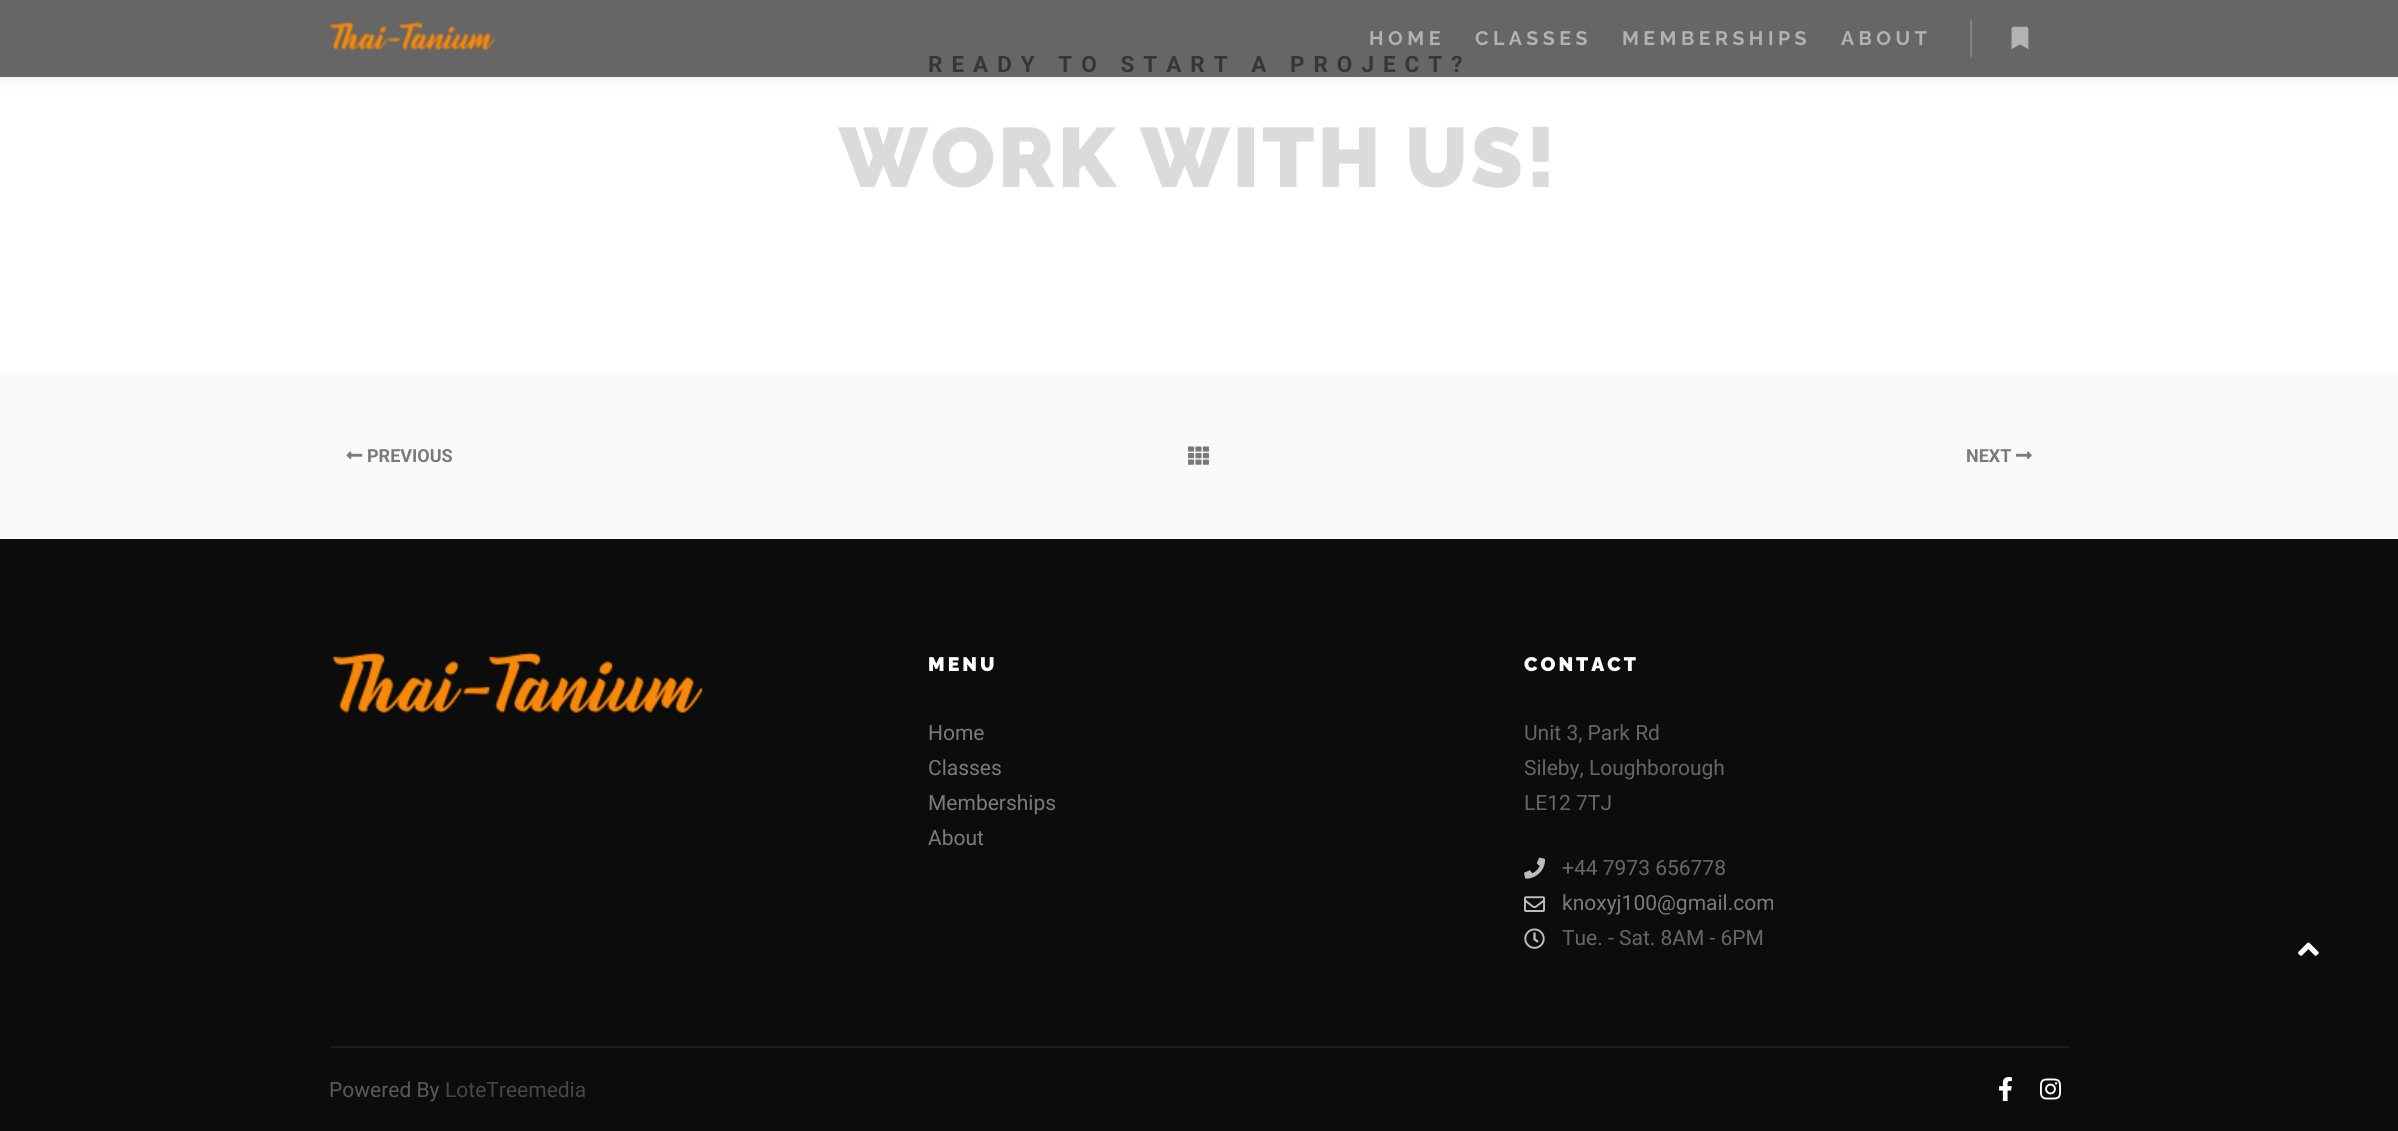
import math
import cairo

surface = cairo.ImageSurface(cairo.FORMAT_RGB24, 2398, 1131)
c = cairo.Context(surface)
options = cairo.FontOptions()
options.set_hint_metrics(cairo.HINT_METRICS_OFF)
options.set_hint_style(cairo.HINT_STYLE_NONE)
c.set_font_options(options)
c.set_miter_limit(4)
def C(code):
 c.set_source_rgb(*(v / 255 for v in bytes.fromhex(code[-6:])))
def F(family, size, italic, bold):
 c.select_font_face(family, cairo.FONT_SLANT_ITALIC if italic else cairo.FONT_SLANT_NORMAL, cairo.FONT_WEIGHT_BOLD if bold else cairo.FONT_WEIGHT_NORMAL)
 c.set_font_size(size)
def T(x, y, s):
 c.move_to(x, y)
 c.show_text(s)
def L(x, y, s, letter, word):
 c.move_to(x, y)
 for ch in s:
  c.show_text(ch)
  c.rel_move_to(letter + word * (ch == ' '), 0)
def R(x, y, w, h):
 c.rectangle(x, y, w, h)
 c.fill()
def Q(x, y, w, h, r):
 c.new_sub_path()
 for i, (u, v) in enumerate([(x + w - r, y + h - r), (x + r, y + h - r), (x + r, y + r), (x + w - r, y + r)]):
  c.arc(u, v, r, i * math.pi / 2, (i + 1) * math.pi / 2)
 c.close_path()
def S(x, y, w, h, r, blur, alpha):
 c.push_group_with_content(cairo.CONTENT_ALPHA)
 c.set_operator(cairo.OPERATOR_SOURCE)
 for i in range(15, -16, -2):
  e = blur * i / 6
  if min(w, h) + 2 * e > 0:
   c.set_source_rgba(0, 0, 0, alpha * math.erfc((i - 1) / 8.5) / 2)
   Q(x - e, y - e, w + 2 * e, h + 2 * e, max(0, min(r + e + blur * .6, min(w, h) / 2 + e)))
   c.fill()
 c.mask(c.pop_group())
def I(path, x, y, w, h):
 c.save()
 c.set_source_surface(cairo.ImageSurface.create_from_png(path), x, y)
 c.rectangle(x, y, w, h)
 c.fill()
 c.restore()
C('ffffff')
c.paint()
c.save()
c.set_fill_rule(cairo.FILL_RULE_EVEN_ODD)
c.new_path()
c.move_to(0,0)
c.line_to(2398,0)
c.line_to(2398,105)
c.line_to(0,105)
c.close_path()
c.move_to(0,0)
c.line_to(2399,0)
c.line_to(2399,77)
c.line_to(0,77)
c.close_path()
c.clip()
C('000000')
S(0,0,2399,77,0,9,.09)
c.restore()
F('Roboto',22.5,0,1)
C('888888')
L(928,72,'READY TO START A PROJECT?',9,0)
c.set_source_rgba(0,0,0,0.6)
R(0,0,2398,77)
I('1.png',329,21,166,30)
F('Raleway',19.5,0,1)
C('b2b2b2')
L(1369,45,'HOME',4.5,0)
L(1475,45,'CLASSES',4.5,0)
L(1622,45,'MEMBERSHIPS',4.5,0)
L(1841,45,'ABOUT',4.5,0)
C('858585')
R(1970,20,2,37)
I('2.png',2011,26,18,24)
F('Raleway Black',84,0,0)
C('dbdbdb')
L(839,187,'WORK WITH US!',3,0)
C('fafafa')
R(0,374,2398,165)
I('3.png',346,451,17,9)
F('Roboto',18,0,1)
C('7a7a7a')
T(367,462,'PREVIOUS')
I('4.png',1188,446,21,19)
T(1966,462,'NEXT')
I('5.png',2016,451,16,9)
C('0c0c0c')
R(0,539,2398,592)
I('6.png',332,652,371,61)
F('Raleway Black',19.5,0,0)
C('ffffff')
L(928,671,'MENU',3,0)
F('Roboto',21,0,0)
C('7a7a7a')
T(928,740,'Home')
T(928,775,'Classes')
T(928,810,'Memberships')
T(928,845,'About')
F('Raleway Black',19.5,0,0)
C('ffffff')
L(1524,671,'CONTACT',3,0)
F('Roboto',21,0,0)
C('666666')
T(1524,740,'Unit 3, Park Rd')
T(1524,775,'Sileby, Loughborough')
T(1524,810,'LE12 7TJ')
I('7.png',1524,857,21,22)
T(1562,875,'+44 7973 656778')
I('8.png',1524,896,21,16)
C('7a7a7a')
T(1562,910,'knoxyj100@gmail.com')
I('9.png',1524,928,21,21)
C('666666')
T(1562,945,'Tue. - Sat. 8AM - 6PM')
C('1b1b1b')
R(330,1046,1740,2)
C('595959')
T(329,1097,'Powered By')
C('474747')
T(445,1097,'LoteTreemedia')
I('10.png',1999,1077,13,24)
I('11.png',2040,1078,22,22)
I('12.png',2298,942,21,14)
surface.write_to_png('o.png')
